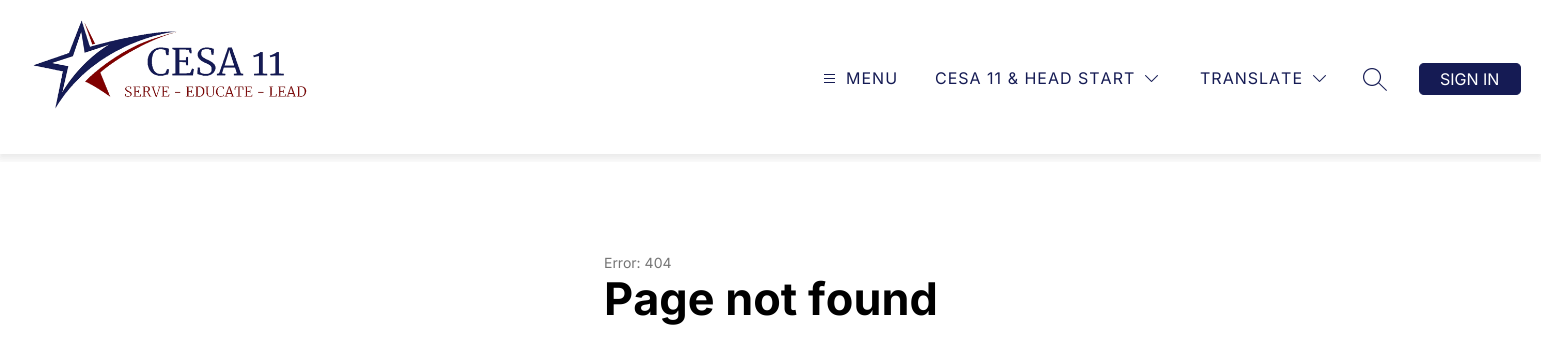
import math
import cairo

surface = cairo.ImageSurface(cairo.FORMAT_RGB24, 1541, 339)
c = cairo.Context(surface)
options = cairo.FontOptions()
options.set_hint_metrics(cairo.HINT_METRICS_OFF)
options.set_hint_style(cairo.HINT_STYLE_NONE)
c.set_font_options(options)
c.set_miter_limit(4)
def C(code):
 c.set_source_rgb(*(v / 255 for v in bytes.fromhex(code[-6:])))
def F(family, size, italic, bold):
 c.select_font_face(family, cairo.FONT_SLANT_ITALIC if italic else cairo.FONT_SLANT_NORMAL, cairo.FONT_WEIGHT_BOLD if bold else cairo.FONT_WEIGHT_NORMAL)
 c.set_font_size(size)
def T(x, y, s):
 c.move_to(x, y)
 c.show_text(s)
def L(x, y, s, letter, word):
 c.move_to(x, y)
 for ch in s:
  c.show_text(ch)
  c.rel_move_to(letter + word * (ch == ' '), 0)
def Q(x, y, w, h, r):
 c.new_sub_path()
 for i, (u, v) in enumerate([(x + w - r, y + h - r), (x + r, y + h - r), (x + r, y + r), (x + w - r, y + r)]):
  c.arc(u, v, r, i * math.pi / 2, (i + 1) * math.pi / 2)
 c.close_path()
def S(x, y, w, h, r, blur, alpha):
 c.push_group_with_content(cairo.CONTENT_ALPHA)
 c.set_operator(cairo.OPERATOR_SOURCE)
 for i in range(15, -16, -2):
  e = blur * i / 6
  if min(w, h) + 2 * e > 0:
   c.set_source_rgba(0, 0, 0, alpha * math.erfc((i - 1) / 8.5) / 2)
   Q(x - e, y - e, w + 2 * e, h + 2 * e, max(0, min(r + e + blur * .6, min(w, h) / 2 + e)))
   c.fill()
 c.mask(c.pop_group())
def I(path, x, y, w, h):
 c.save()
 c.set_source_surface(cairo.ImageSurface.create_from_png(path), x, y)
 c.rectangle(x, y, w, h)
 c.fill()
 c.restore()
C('ffffff')
c.paint()
c.save()
c.rectangle(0,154,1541,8)
c.clip()
C('000000')
S(0,4,1541,154,0,5,.1)
c.restore()
I('1.png',33,20,274,89)
I('2.png',824,74,11,9)
F('Inter',16,0,0)
C('151b54')
L(846,84,'MENU',1,0)
L(935,84,'CESA 11 & HEAD START',1,0)
I('3.png',1145,75,13,7)
L(1200,84,'TRANSLATE',1,0)
I('3.png',1313,75,13,7)
I('4.png',1363,68,24,23)
Q(1419.5,63.5,101,31,4.5)
c.fill_preserve()
c.set_line_width(1)
c.stroke()
C('ffffff')
T(1440,85,'SIGN IN')
F('Inter',14,0,0)
C('747474')
T(604,268,'Error: 404')
F('Inter',45,0,1)
C('000000')
T(604,315,'Page not found')
surface.write_to_png('o.png')
